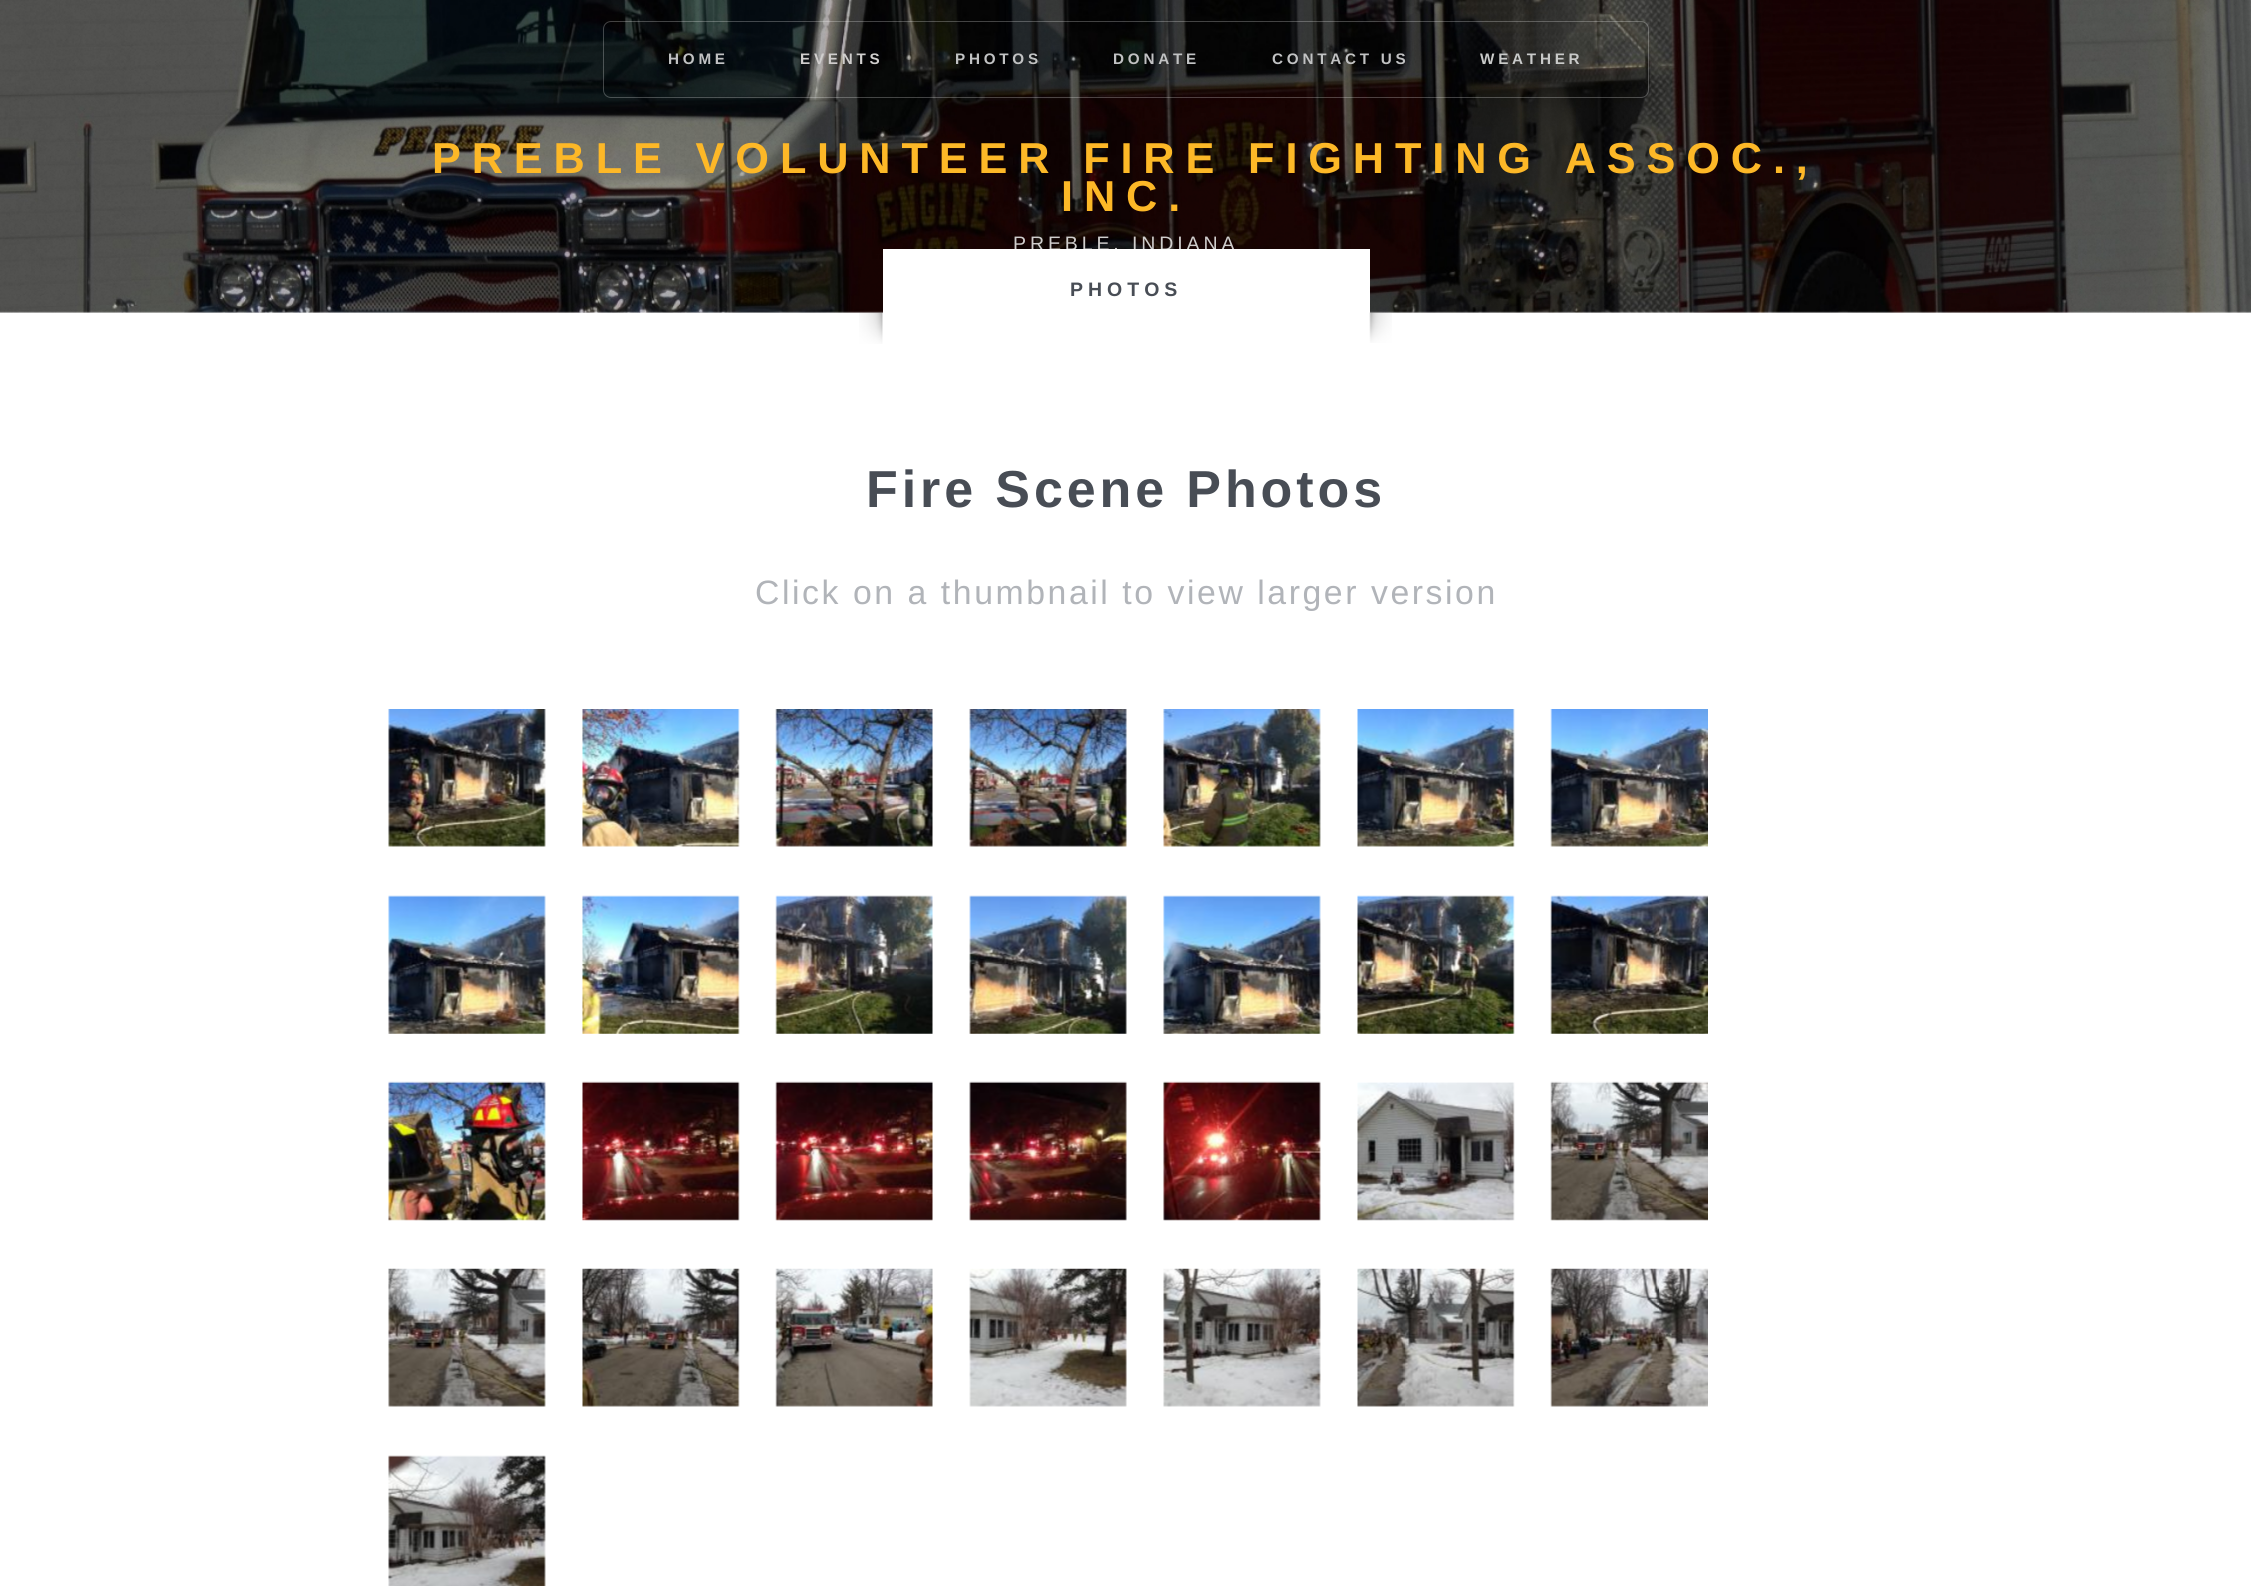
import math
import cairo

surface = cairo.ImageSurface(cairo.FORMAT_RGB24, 2251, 1586)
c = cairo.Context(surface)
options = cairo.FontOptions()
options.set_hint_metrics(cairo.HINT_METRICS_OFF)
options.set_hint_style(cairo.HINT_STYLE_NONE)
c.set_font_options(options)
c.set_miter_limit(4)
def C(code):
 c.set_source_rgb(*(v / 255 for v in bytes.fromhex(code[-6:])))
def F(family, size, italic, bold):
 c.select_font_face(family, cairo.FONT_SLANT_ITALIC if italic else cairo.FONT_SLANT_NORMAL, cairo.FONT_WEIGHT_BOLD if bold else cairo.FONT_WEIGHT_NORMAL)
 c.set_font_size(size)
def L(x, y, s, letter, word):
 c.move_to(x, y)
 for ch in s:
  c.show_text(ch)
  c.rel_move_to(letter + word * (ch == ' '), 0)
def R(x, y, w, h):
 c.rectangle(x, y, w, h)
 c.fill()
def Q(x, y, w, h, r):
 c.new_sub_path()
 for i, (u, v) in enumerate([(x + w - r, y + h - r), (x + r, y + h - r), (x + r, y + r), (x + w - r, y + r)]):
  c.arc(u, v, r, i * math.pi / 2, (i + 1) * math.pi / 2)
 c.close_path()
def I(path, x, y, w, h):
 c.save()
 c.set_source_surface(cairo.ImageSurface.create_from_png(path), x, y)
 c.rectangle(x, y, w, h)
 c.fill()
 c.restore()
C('ffffff')
c.paint()
I('1.png',0,0,2251,313)
I('2.png',0,0,2251,313)
Q(603.5,21.5,1045,76,7.5)
c.set_source_rgba(1,1,1,0.25)
c.set_line_width(1)
c.stroke()
F('Liberation Sans',15.25,0,1)
C('c1c2c3')
L(668,64,'HOME',3.75,0)
C('d0cecd')
L(800,64,'EVENTS',3.75,0)
C('c1c2c3')
L(955,64,'PHOTOS',3.75,0)
L(1113,64,'DONATE',3.75,0)
L(1272,64,'CONTACT US',3.75,0)
C('c9cac9')
L(1480,64,'WEATHER',3.75,0)
F('Liberation Sans',43.3,0,1)
C('fdb827')
L(432,173,'PREBLE VOLUNTEER FIRE FIGHTING ASSOC.,',10.85,0)
L(1061,211,'INC.',10.85,0)
F('Liberation Sans',19.5,0,0)
C('d0cecd')
L(1013,250,'PREBLE, INDIANA',3.9,0)
C('ffffff')
R(883,249,487,64)
F('Liberation Sans',19.5,0,1)
C('484d55')
L(1070,296,'PHOTOS',5,0)
I('3.png',859,312,24,32)
I('4.png',1369,312,23,31)
F('Liberation Sans',52,0,1)
L(866,507,'Fire Scene Photos',3.9,0)
F('Liberation Sans',33.8,0,0)
C('b1b4b9')
L(755,604,'Click on a thumbnail to view larger version',2.55,0)
I('5.png',388,709,158,138)
I('6.png',582,709,158,138)
I('7.png',775,709,158,138)
I('8.png',969,709,158,138)
I('9.png',1163,709,158,138)
I('10.png',1357,709,158,138)
I('11.png',1550,709,158,138)
I('12.png',388,895,158,139)
I('13.png',582,895,158,139)
I('14.png',775,895,158,139)
I('15.png',969,895,158,139)
I('16.png',1163,895,158,139)
I('17.png',1357,895,158,139)
I('18.png',1550,895,158,139)
I('19.png',388,1081,158,140)
I('20.png',582,1081,158,140)
I('21.png',775,1081,158,140)
I('22.png',969,1081,158,140)
I('23.png',1163,1081,158,140)
I('24.png',1357,1082,158,139)
I('25.png',1550,1081,158,140)
I('26.png',388,1268,158,139)
I('27.png',582,1268,158,139)
I('28.png',775,1268,158,139)
I('29.png',969,1268,158,139)
I('30.png',1163,1268,158,139)
I('31.png',1357,1268,158,139)
I('32.png',1550,1268,158,139)
I('33.png',388,1455,158,131)
surface.write_to_png('o.png')
